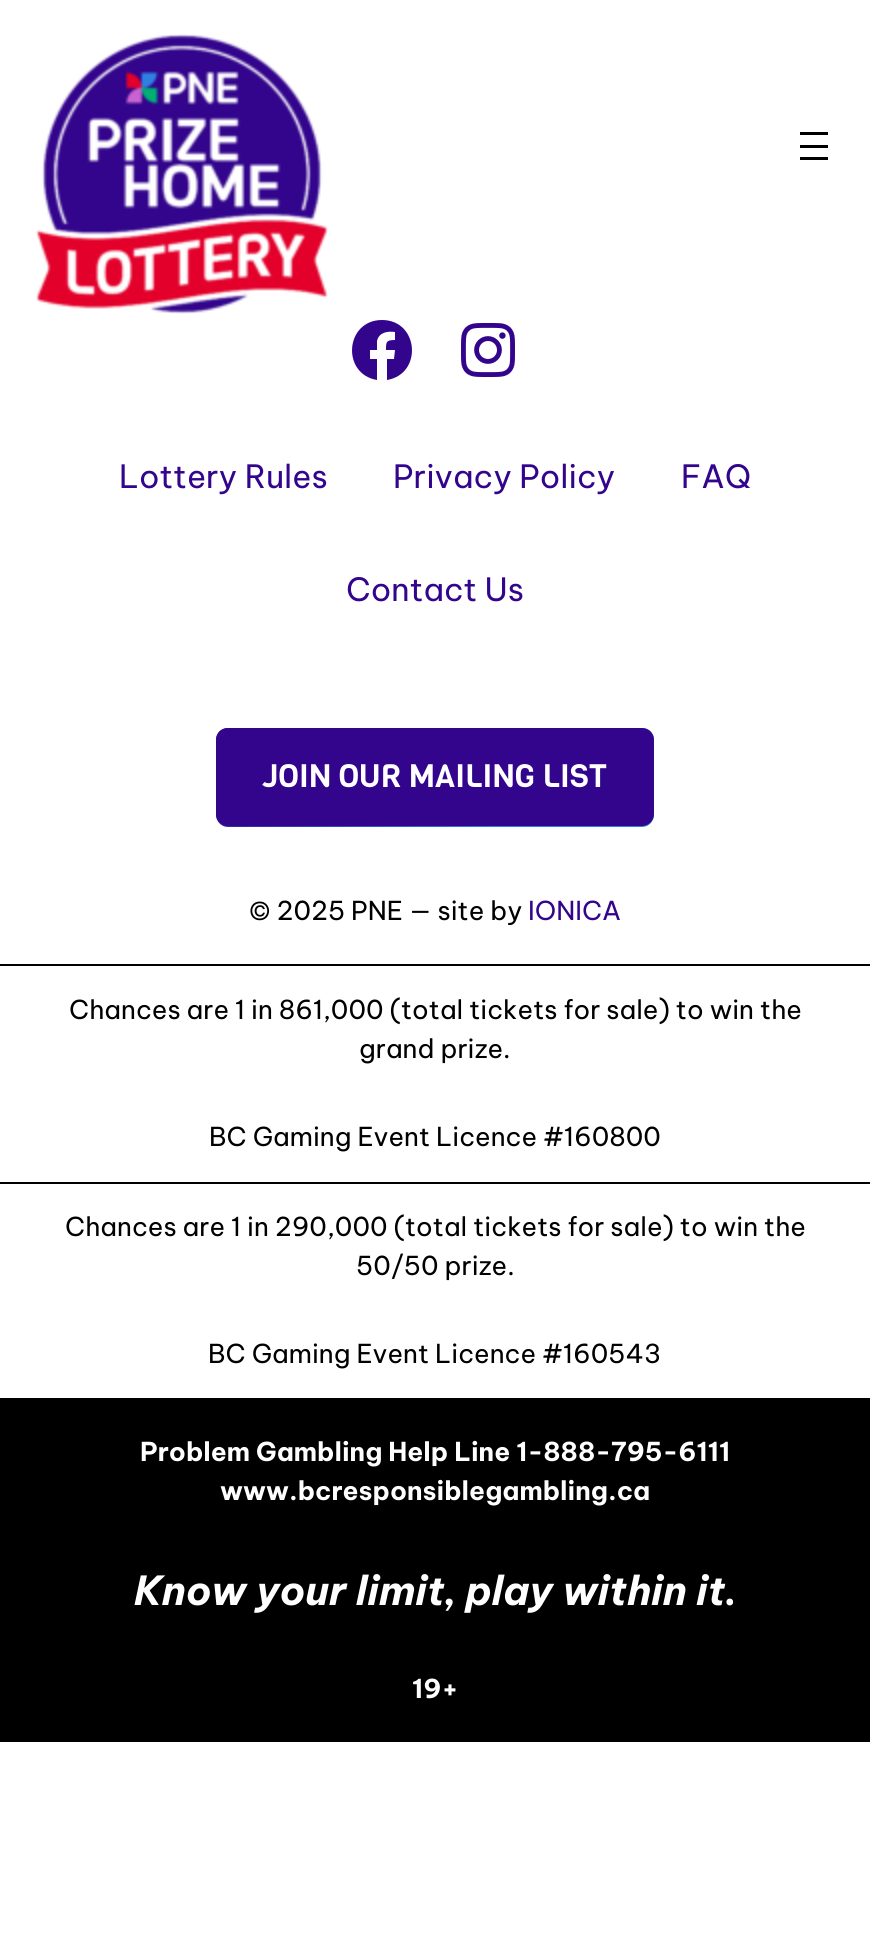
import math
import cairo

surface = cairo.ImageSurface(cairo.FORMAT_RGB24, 870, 1939)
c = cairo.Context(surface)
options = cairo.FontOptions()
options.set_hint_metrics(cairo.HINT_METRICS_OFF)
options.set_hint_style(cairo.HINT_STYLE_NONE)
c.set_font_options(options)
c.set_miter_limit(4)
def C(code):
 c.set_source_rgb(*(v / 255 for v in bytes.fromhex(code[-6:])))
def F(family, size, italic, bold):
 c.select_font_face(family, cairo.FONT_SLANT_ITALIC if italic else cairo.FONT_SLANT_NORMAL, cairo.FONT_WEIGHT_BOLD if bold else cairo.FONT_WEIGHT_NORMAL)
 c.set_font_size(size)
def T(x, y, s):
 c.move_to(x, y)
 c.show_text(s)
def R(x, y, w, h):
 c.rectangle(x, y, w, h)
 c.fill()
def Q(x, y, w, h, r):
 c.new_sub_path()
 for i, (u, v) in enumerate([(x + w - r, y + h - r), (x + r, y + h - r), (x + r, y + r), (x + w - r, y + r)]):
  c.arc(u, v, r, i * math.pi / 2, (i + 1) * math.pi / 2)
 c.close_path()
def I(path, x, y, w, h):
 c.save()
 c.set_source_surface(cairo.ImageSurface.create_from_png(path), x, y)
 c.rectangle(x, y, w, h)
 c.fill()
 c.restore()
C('ffffff')
c.paint()
I('1.png',35,34,294,280)
C('000000')
R(800,132,28,3)
R(800,145,28,3)
R(800,157,28,3)
C('33058d')
c.new_path()
c.move_to(382,320)
c.curve_to(345,320,341,374,377,380)
c.line_to(377,359)
c.line_to(370,359)
c.line_to(370,350)
c.line_to(377,350)
c.line_to(377,341)
c.curve_to(379,332,388,331,395,332)
c.line_to(395,340)
c.curve_to(386,340,386,342,386,350)
c.line_to(395,350)
c.line_to(394,359)
c.line_to(387,359)
c.line_to(387,380)
c.curve_to(423,374,419,320,382,320)
c.close_path()
c.fill()
I('2.png',461,323,54,54)
F('Be Vietnam Pro',32,0,0)
T(119,488,'Lottery Rules')
T(393,488,'Privacy Policy')
T(681,488,'FAQ')
T(346,601,'Contact Us')
gradient = cairo.LinearGradient(569,912,301,643)
gradient.add_color_stop_rgba(.3,0.188,0.498,0.886,1)
gradient.add_color_stop_rgba(1,0.2,0.02,0.553,1)
c.set_source(gradient)
c.new_path()
c.move_to(642,827)
c.line_to(228,827)
c.curve_to(221,827,216,821,216,815)
c.line_to(216,740)
c.curve_to(216,733,221,728,228,728)
c.line_to(642,728)
c.curve_to(649,728,654,733,654,740)
c.line_to(654,815)
c.curve_to(654,821,649,827,642,827)
c.close_path()
c.fill()
C('33058d')
Q(216,728,438,98,12)
c.fill()
F('Viga',32,0,0)
C('ffffff')
T(262,787,'JOIN OUR MAILING LIST')
F('Be Vietnam Pro',26,0,0)
C('000000')
T(249,920,'© 2025 PNE — site by')
C('33058d')
T(528,920,'IONICA')
C('000000')
R(0,964,870,2)
R(0,1182,870,2)
T(69,1019,'Chances are 1 in 861,000 (total tickets for sale) to win the')
T(359,1058,'grand prize.')
T(209,1146,'BC Gaming Event Licence #160800')
R(0,1398,870,344)
T(65,1236,'Chances are 1 in 290,000 (total tickets for sale) to win the')
T(356,1275,'50/50 prize.')
T(208,1363,'BC Gaming Event Licence #160543')
F('Be Vietnam Pro',26,0,1)
C('ffffff')
T(140,1461,'Problem Gambling Help Line 1-888-795-6111')
T(220,1500,'www.bcresponsiblegambling.ca')
F('Be Vietnam Pro',40,1,1)
T(134,1605,'Know your limit, play within it.')
F('Be Vietnam Pro',26,0,1)
T(412,1698,'19+')
surface.write_to_png('o.png')
